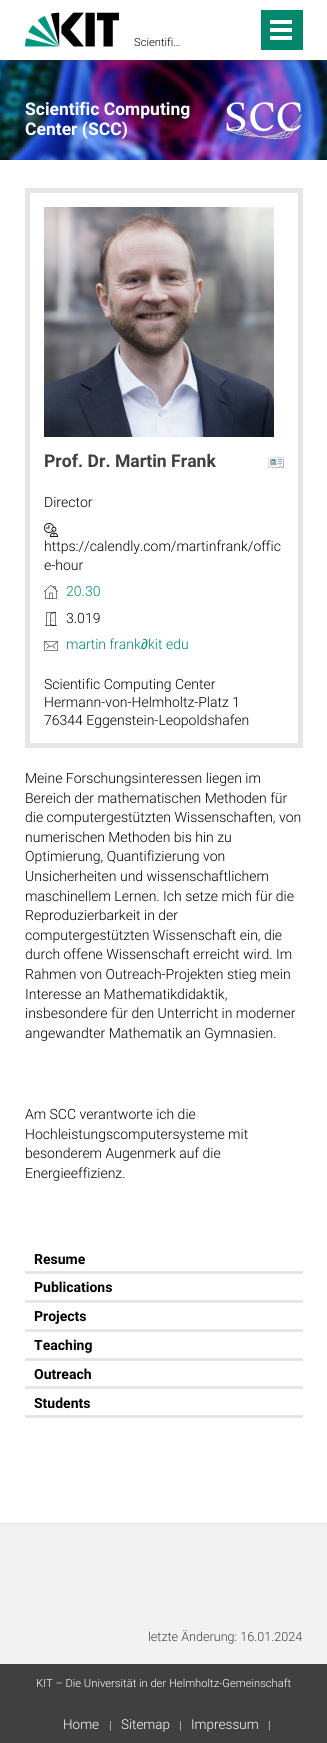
import math
import cairo

surface = cairo.ImageSurface(cairo.FORMAT_RGB24, 327, 1743)
c = cairo.Context(surface)
options = cairo.FontOptions()
options.set_hint_metrics(cairo.HINT_METRICS_OFF)
options.set_hint_style(cairo.HINT_STYLE_NONE)
c.set_font_options(options)
c.set_miter_limit(4)
def C(code):
 c.set_source_rgb(*(v / 255 for v in bytes.fromhex(code[-6:])))
def F(family, size, italic, bold):
 c.select_font_face(family, cairo.FONT_SLANT_ITALIC if italic else cairo.FONT_SLANT_NORMAL, cairo.FONT_WEIGHT_BOLD if bold else cairo.FONT_WEIGHT_NORMAL)
 c.set_font_size(size)
def T(x, y, s):
 c.move_to(x, y)
 c.show_text(s)
def R(x, y, w, h):
 c.rectangle(x, y, w, h)
 c.fill()
def Q(x, y, w, h, r):
 c.new_sub_path()
 for i, (u, v) in enumerate([(x + w - r, y + h - r), (x + r, y + h - r), (x + r, y + r), (x + w - r, y + r)]):
  c.arc(u, v, r, i * math.pi / 2, (i + 1) * math.pi / 2)
 c.close_path()
def S(x, y, w, h, r, blur, alpha):
 c.push_group_with_content(cairo.CONTENT_ALPHA)
 c.set_operator(cairo.OPERATOR_SOURCE)
 for i in range(15, -16, -2):
  e = blur * i / 6
  if min(w, h) + 2 * e > 0:
   c.set_source_rgba(0, 0, 0, alpha * math.erfc((i - 1) / 8.5) / 2)
   Q(x - e, y - e, w + 2 * e, h + 2 * e, max(0, min(r + e + blur * .6, min(w, h) / 2 + e)))
   c.fill()
 c.mask(c.pop_group())
def I(path, x, y, w, h):
 c.save()
 c.set_source_surface(cairo.ImageSurface.create_from_png(path), x, y)
 c.rectangle(x, y, w, h)
 c.fill()
 c.restore()
C('ffffff')
c.paint()
I('2.png',0,60,327,100)
c.save()
c.rectangle(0,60,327,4)
c.clip()
C('404040')
S(0,0,327,60,0,2.5,.5)
c.restore()
I('1.png',25,12,94,35)
F('Roboto Light',11.2,0,0)
C('000000')
T(134,46,'Scientifi…')
C('00876c')
R(261,10,42,40)
C('ffffff')
R(270,36,22,4)
R(270,28,22,4)
R(270,20,22,4)
F('Roboto',17.5,0,1)
T(25,115,'Scientific Computing')
T(25,135,'Center (SCC)')
I('3.png',226,102,76,37)
c.rectangle(27.5,190.5,273,555)
C('e6e6e6')
c.set_line_width(5)
c.stroke()
I('4.png',44,207,230,230)
F('Roboto',17.6,0,1)
C('404040')
T(44,467,'Prof. Dr. Martin Frank')
I('5.png',268,457,16,11)
F('Roboto Light',14,0,0)
C('000000')
T(44,507,'Director')
I('6.png',44,523,14,14)
T(44,551,'https://calendly.com/martinfrank/offic')
T(44,570,'e-hour')
I('7.png',44,585,14,14)
C('00876c')
T(66,596,'20.30')
I('8.png',45,612,12,14)
C('000000')
T(66,623,'3.019')
I('9.png',44,641,14,10)
C('00876c')
T(66,649,'martin frank')
F('Liberation Sans',14,0,0)
T(141,649,'∂')
F('Roboto Light',14,0,0)
T(148,649,'kit edu')
C('000000')
T(44,689,'Scientific Computing Center')
T(44,707,'Hermann-von-Helmholtz-Platz 1')
T(44,725,'76344 Eggenstein-Leopoldshafen')
T(25,783,'Meine Forschungsinteressen liegen im')
T(25,803,'Bereich der mathematischen Methoden für')
T(25,822,'die computergestützten Wissenschaften, von')
T(25,842,'numerischen Methoden bis hin zu')
T(25,861,'Optimierung, Quantifizierung von')
T(25,881,'Unsicherheiten und wissenschaftlichem')
T(25,901,'maschinellem Lernen. Ich setze mich für die')
T(25,920,'Reproduzierbarkeit in der')
T(25,940,'computergestützten Wissenschaft ein, die')
T(25,959,'durch offene Wissenschaft erreicht wird. Im')
T(25,979,'Rahmen von Outreach-Projekten stieg mein')
T(25,999,'Interesse an Mathematikdidaktik,')
T(25,1018,'insbesondere für den Unterricht in moderner')
T(25,1038,'angewandter Mathematik an Gymnasien.')
T(25,1119,'Am SCC verantworte ich die')
T(25,1139,'Hochleistungscomputersysteme mit')
T(25,1158,'besonderem Augenmerk auf die')
T(25,1178,'Energieeffizienz.')
C('e6e6e6')
R(25,1271,278,3)
F('Roboto',14,0,1)
C('000000')
T(34,1264,'Resume')
C('e6e6e6')
R(25,1300,278,3)
C('000000')
T(34,1292,'Publications')
C('e6e6e6')
R(25,1329,278,3)
C('000000')
T(34,1321,'Projects')
C('e6e6e6')
R(25,1358,278,3)
C('000000')
T(34,1350,'Teaching')
C('e6e6e6')
R(25,1386,278,3)
C('000000')
T(34,1379,'Outreach')
C('e6e6e6')
R(25,1415,278,3)
C('000000')
T(34,1408,'Students')
C('f2f2f2')
R(0,1524,327,140)
C('e6e6e6')
R(0,1523,327,1)
F('Roboto Light',12.6,0,0)
C('404040')
T(148,1641,'letzte Änderung: 16.01.2024')
R(0,1664,327,79)
F('Roboto Light',11.2,0,0)
C('ffffff')
T(36,1687,'KIT – Die Universität in der Helmholtz-Gemeinschaft')
F('Roboto Light',13.5,0,0)
T(63,1729,'Home')
F('Roboto Light',11.2,0,0)
T(109,1729,'|')
F('Roboto Light',13.5,0,0)
T(121,1729,'Sitemap')
F('Roboto Light',11.2,0,0)
T(179,1729,'|')
F('Roboto Light',13.5,0,0)
T(191,1729,'Impressum')
F('Roboto Light',11.2,0,0)
T(268,1729,'|')
surface.write_to_png('o.png')
